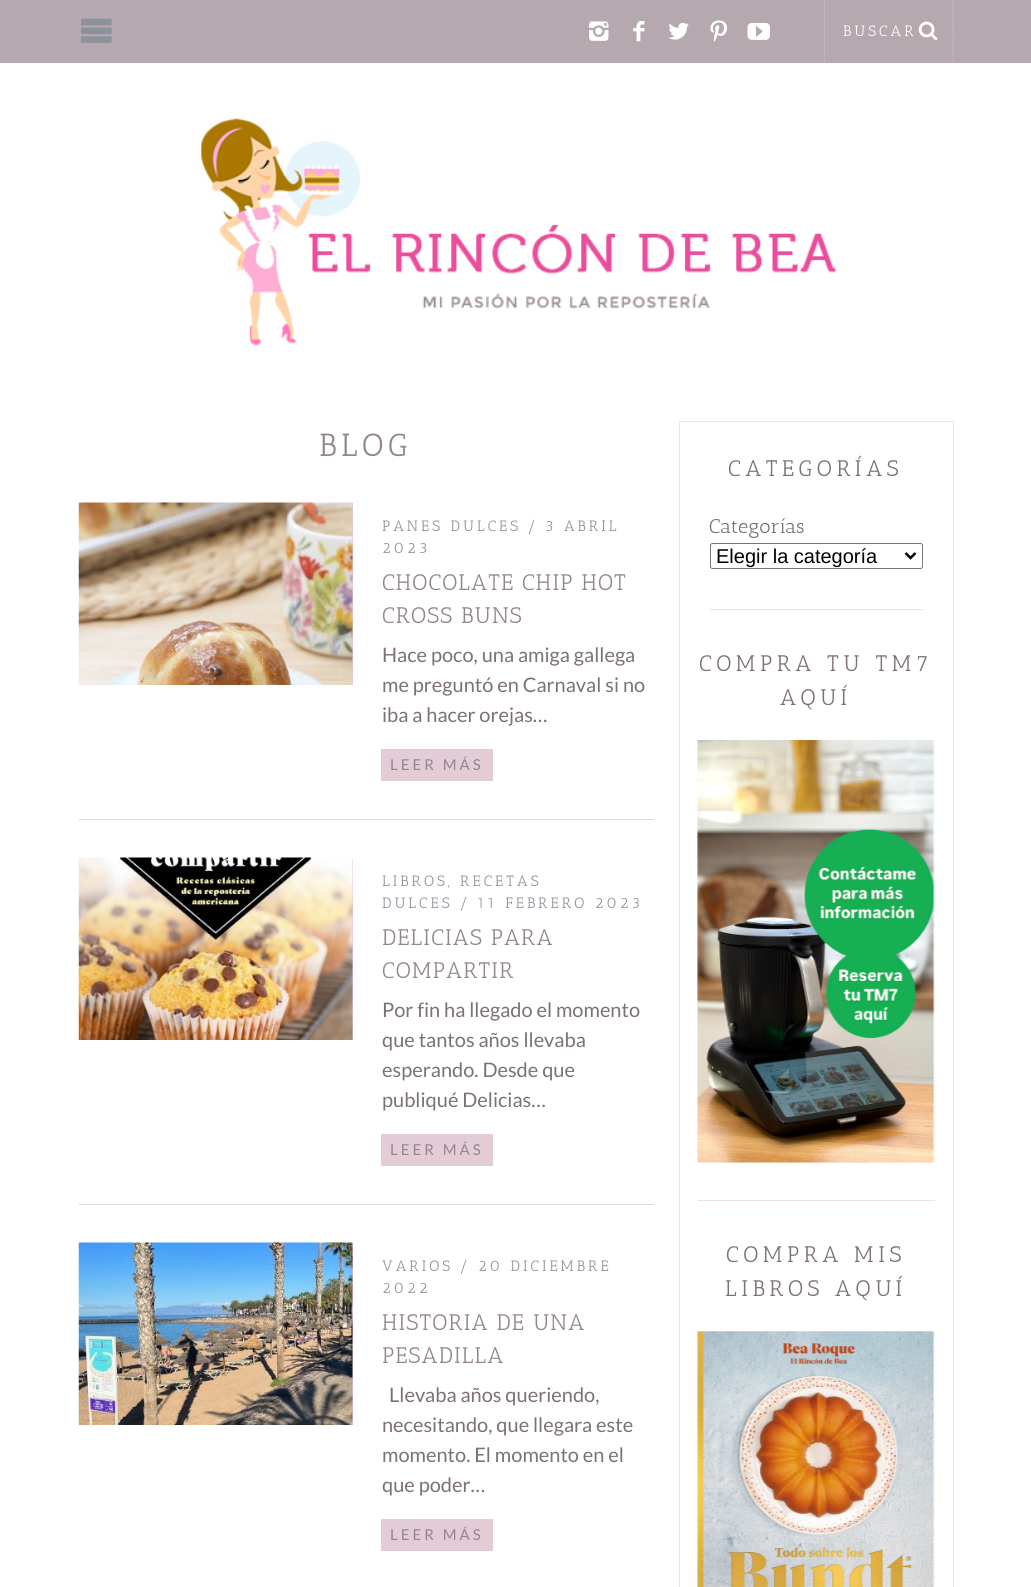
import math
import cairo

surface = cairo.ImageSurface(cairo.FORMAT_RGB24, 1031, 1587)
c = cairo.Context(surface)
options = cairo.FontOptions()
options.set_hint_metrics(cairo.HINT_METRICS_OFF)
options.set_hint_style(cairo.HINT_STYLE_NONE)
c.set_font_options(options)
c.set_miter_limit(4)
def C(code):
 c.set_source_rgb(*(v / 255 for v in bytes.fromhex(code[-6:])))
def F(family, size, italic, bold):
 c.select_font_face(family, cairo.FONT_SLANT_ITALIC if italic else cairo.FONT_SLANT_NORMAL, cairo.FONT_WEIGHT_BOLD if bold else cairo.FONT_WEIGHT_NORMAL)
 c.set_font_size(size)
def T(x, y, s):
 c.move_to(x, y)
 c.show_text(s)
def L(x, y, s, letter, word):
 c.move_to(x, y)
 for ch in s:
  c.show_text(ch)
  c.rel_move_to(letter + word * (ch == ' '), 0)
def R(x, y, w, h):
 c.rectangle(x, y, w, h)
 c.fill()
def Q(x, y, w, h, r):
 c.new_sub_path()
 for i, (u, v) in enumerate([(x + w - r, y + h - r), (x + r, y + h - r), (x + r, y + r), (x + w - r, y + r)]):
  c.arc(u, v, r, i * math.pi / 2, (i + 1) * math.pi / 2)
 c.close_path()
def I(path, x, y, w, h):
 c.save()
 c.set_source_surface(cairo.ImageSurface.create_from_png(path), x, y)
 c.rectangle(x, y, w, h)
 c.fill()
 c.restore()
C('ffffff')
c.paint()
C('b5a8af')
R(0,0,1031,63)
I('1.png',81,18,31,25)
I('2.png',589,21,20,20)
I('3.png',633,21,12,21)
I('4.png',668,22,21,18)
I('5.png',710,20,17,22)
I('6.png',747,23,23,17)
c.new_path()
c.move_to(953,0)
c.line_to(953,62.5)
C('d1c2c7')
c.set_line_width(1.2)
c.set_dash([1.25,1.25])
c.stroke()
c.new_path()
c.move_to(824.5,0)
c.line_to(824.5,62.5)
c.stroke()
F('Antic Slab',15,0,0)
C('ffffff')
L(843,36,'BUSCAR',3,0)
I('7.png',918,21,20,20)
I('8.png',201,118,636,228)
F('Antic Slab',32,0,0)
C('92868c')
L(319,456,'BLOG',4.5,0)
C('dddddd')
R(79,819,575,1)
C('e9c7d7')
R(352,503,1,182)
I('9.png',78,502,275,183)
F('Antic Slab',15,0,0)
C('8c919b')
L(382,531,'PANES DULCES',3,0)
L(527,531,'/',3,0)
L(545,531,'3 ABRIL',3,0)
L(382,553,'2023',3,0)
F('Antic Slab',22.5,0,0)
C('92868c')
L(382,590,'CHOCOLATE CHIP HOT',1.1,0)
L(382,623,'CROSS BUNS',1.1,0)
F('Lato',20,0,0)
C('7c7176')
T(382,662,'Hace poco, una amiga gallega')
T(382,692,'me preguntó en Carnaval si no')
T(382,722,'iba a hacer orejas…')
C('e4ccd7')
R(381,749,112,32)
F('Lato',15,0,0)
C('92868c')
L(390,770,'LEER MÁS',3,0)
C('dddddd')
R(79,1204,575,1)
C('e9c7d7')
R(352,858,1,182)
I('10.png',78,857,275,183)
F('Antic Slab',15,0,0)
C('8c919b')
L(382,886,'LIBROS, RECETAS',3,0)
L(382,908,'DULCES',3,0)
L(459,908,'/',3,0)
L(477,908,'11 FEBRERO 2023',3,0)
F('Antic Slab',22.5,0,0)
C('92868c')
L(382,945,'DELICIAS PARA',1.1,0)
L(382,978,'COMPARTIR',1.1,0)
F('Lato',20,0,0)
C('7c7176')
T(382,1017,'Por fin ha llegado el momento')
T(382,1047,'que tantos años llevaba')
T(382,1077,'esperando. Desde que')
T(382,1107,'publiqué Delicias…')
C('e4ccd7')
R(381,1134,112,32)
F('Lato',15,0,0)
C('92868c')
L(390,1155,'LEER MÁS',3,0)
C('e9c7d7')
R(352,1243,1,182)
I('11.png',78,1242,275,183)
F('Antic Slab',15,0,0)
C('8c919b')
L(382,1271,'VARIOS',3,0)
L(459,1271,'/',3,0)
L(478,1271,'20 DICIEMBRE',3,0)
L(382,1293,'2022',3,0)
F('Antic Slab',22.5,0,0)
C('92868c')
L(382,1330,'HISTORIA DE UNA',1.1,0)
L(382,1363,'PESADILLA',1.1,0)
F('Lato',20,0,0)
C('7c7176')
T(389,1402,'Llevaba años queriendo,')
T(382,1432,'necesitando, que llegara este')
T(382,1462,'momento. El momento en el')
T(382,1492,'que poder…')
C('e4ccd7')
R(381,1519,112,32)
F('Lato',15,0,0)
C('92868c')
L(390,1540,'LEER MÁS',3,0)
c.rectangle(679.5,421.5,274,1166)
C('ede1e5')
c.set_line_width(1)
c.set_dash([])
c.stroke()
R(710,609,213,1)
F('Antic Slab',22.5,0,0)
C('7c7176')
L(728,476,'CATEGORÍAS',4.5,0)
F('Antic Slab',20,0,0)
T(709,533,'Categorías')
Q(710.5,543.5,212,25,2)
C('767676')
c.stroke()
c.new_path()
c.move_to(905.5,553)
c.line_to(910.5,558)
c.line_to(915.5,553)
C('000000')
c.set_line_width(2.5)
c.stroke()
F('Liberation Sans',20,0,0)
T(716,563,'Elegir la categoría')
C('ede1e5')
R(698,1200,237,1)
F('Antic Slab',22.5,0,0)
C('7c7176')
L(699,671,'COMPRA TU TM7',4.5,0)
L(780,705,'AQUÍ',4.5,0)
I('12.png',697,740,238,423)
L(726,1262,'COMPRA MIS',4.5,0)
L(725,1296,'LIBROS AQUÍ',4.5,0)
I('13.png',697,1331,238,256)
surface.write_to_png('o.png')
